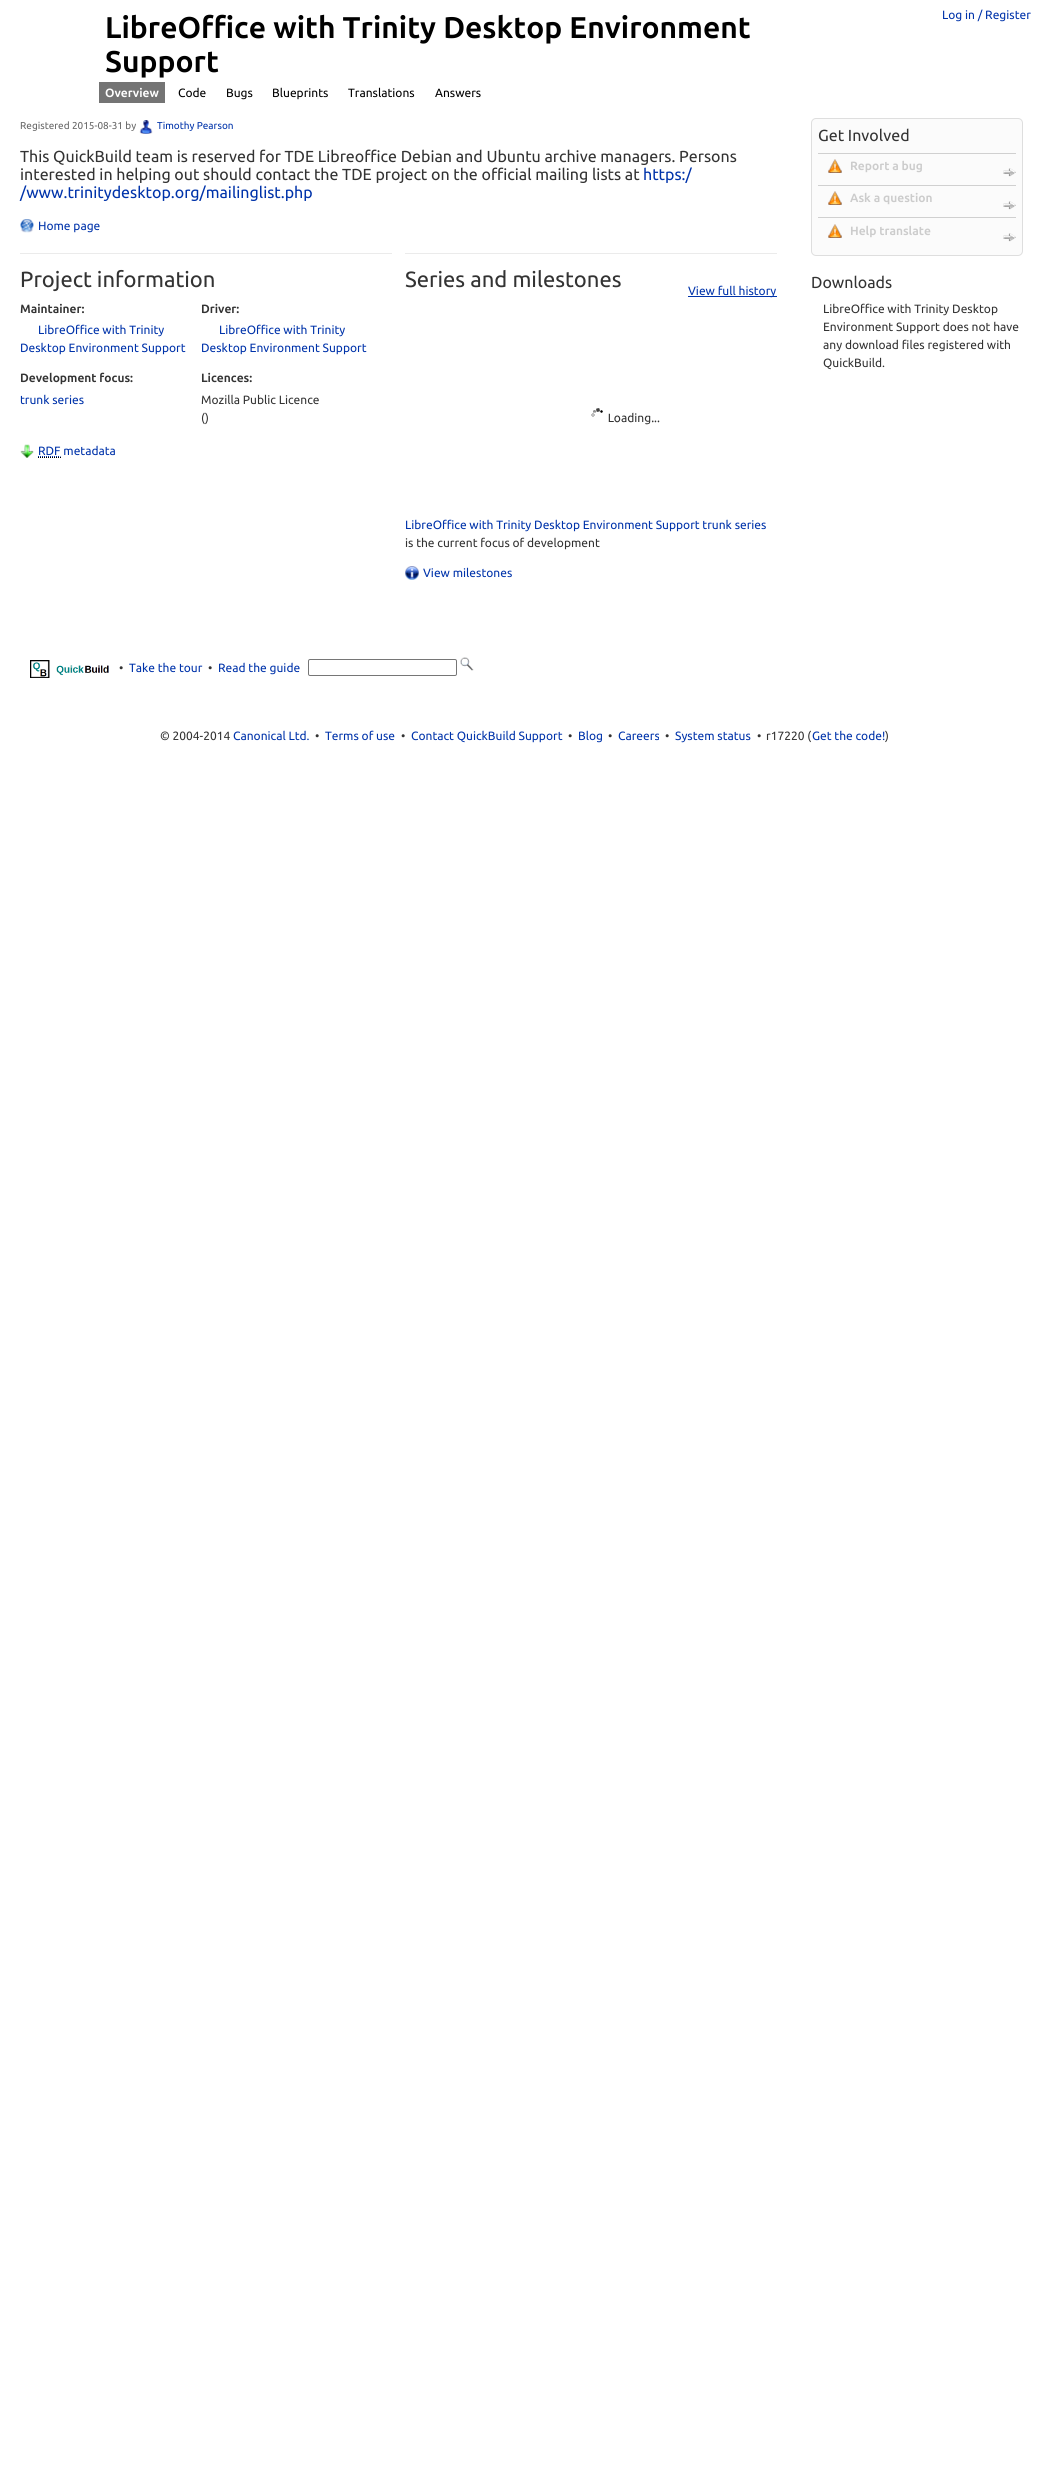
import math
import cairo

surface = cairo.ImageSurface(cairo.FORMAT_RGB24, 1049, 2482)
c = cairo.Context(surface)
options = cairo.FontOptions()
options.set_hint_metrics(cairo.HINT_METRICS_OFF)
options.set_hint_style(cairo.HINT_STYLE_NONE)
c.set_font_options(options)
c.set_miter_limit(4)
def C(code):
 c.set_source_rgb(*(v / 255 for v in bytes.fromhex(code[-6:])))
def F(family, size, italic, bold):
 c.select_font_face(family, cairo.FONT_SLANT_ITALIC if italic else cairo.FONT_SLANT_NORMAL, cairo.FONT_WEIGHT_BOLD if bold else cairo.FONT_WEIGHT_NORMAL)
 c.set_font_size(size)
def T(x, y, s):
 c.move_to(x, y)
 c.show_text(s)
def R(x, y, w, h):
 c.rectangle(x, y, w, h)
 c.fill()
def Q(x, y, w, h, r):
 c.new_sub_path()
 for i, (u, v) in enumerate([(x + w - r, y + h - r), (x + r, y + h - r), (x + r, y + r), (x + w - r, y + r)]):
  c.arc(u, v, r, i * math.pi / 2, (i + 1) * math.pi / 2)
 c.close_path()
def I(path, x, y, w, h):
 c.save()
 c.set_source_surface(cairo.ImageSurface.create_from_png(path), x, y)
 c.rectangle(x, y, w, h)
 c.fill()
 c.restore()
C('ffffff')
c.paint()
F('Ubuntu',30,0,1)
C('000000')
T(105,38,'LibreOffice with Trinity Desktop Environment')
T(105,72,'Support')
C('747474')
R(99,82,66,21)
F('Ubuntu',12,0,1)
C('ffffff')
T(105,97,'Overview')
F('Ubuntu',12,0,0)
C('000000')
T(178,97,'Code')
T(226,97,'Bugs')
T(272,97,'Blueprints')
T(348,97,'Translations')
T(435,97,'Answers')
C('0033aa')
T(942,19,'Log in / Register')
F('Ubuntu',10,0,0)
C('666666')
T(20,129,'Registered 2015-08-31 by')
I('1.png',139,120,14,14)
C('0033aa')
T(157,129,'Timothy Pearson')
F('Ubuntu',16,0,0)
C('333333')
T(20,162,'This QuickBuild team is reserved for TDE Libreoffice Debian and Ubuntu archive managers. Persons')
T(20,180,'interested in helping out should contact the TDE project on the official mailing lists at')
C('0033aa')
T(643,180,'https:/')
T(20,198,'/www.trinitydesktop.org/mailinglist.php')
I('2.png',20,219,14,14)
F('Ubuntu',12,0,0)
T(38,230,'Home page')
C('ebebeb')
R(20,253,372,1)
F('Ubuntu',22,0,0)
C('333333')
T(20,287,'Project information')
F('Ubuntu',12,0,1)
T(20,313,'Maintainer:')
F('Ubuntu',12,0,0)
C('0033aa')
T(38,334,'LibreOffice with Trinity')
T(20,352,'Desktop Environment Support')
F('Ubuntu',12,0,1)
C('333333')
T(201,313,'Driver:')
F('Ubuntu',12,0,0)
C('0033aa')
T(219,334,'LibreOffice with Trinity')
T(201,352,'Desktop Environment Support')
F('Ubuntu',12,0,1)
C('333333')
T(20,382,'Development focus:')
F('Ubuntu',12,0,0)
C('0033aa')
T(20,404,'trunk series')
F('Ubuntu',12,0,1)
C('333333')
T(201,382,'Licences:')
F('Ubuntu',12,0,0)
T(201,404,'Mozilla Public Licence')
T(201,422,'()')
I('3.png',20,444,14,14)
C('0033aa')
T(38,455,'RDF metadata')
c.new_path()
c.move_to(38,457.5)
c.line_to(61,457.5)
C('000000')
c.set_line_width(1)
c.set_dash([1,1])
c.stroke()
c.new_path()
c.move_to(38,456.5)
c.line_to(60.5,456.5)
C('0033aa')
c.stroke()
C('ebebeb')
R(405,253,372,1)
F('Ubuntu',22,0,0)
C('333333')
T(405,287,'Series and milestones')
C('0033aa')
R(688,296,89,1)
F('Ubuntu',12,0,0)
T(688,295,'View full history')
I('4.png',591,408,69,17)
T(405,529,'LibreOffice with Trinity Desktop Environment Support trunk series')
C('333333')
T(405,547,'is the current focus of development')
I('5.png',405,566,14,14)
C('0033aa')
T(423,577,'View milestones')
C('fbfbfb')
Q(811.5,118.5,211,137,4.5)
c.fill_preserve()
C('dedede')
c.set_dash([])
c.stroke()
F('Ubuntu',16,0,0)
C('333333')
T(818,141,'Get Involved')
C('d0d0d0')
R(818,153,198,1)
I('6.png',828,159,14,14)
F('Ubuntu',12,0,1)
C('cccccc')
T(850,170,'Report a bug')
I('7.png',1003,168,13,9)
C('d0d0d0')
R(818,185,198,1)
I('6.png',828,191,14,14)
C('cccccc')
T(850,202,'Ask a question')
I('7.png',1003,201,13,9)
C('d0d0d0')
R(818,217,198,1)
I('6.png',828,224,14,14)
C('cccccc')
T(850,235,'Help translate')
I('7.png',1003,233,13,9)
F('Ubuntu',16,0,0)
C('333333')
T(811,288,'Downloads')
F('Ubuntu',12,0,0)
T(823,313,'LibreOffice with Trinity Desktop')
T(823,331,'Environment Support does not have')
T(823,349,'any download files registered with')
T(823,367,'QuickBuild.')
I('8.png',30,660,79,18)
T(119,672,'•')
C('0033aa')
T(129,672,'Take the tour')
C('333333')
T(208,672,'•')
C('0033aa')
T(218,672,'Read the guide')
Q(308.5,659.5,148,16,1.5)
C('767676')
c.stroke()
I('9.png',460,657,14,14)
C('333333')
T(160,740,'© 2004-2014')
C('0033aa')
T(233,740,'Canonical Ltd.')
C('333333')
T(315,740,'•')
C('0033aa')
T(325,740,'Terms of use')
C('333333')
T(401,740,'•')
C('0033aa')
T(411,740,'Contact QuickBuild Support')
C('333333')
T(568,740,'•')
C('0033aa')
T(578,740,'Blog')
C('333333')
T(608,740,'•')
C('0033aa')
T(618,740,'Careers')
C('333333')
T(665,740,'•')
C('0033aa')
T(675,740,'System status')
C('333333')
T(757,740,'•')
T(766,740,'r17220 (')
C('0033aa')
T(812,740,'Get the code!')
C('333333')
T(885,740,')')
surface.write_to_png('o.png')
